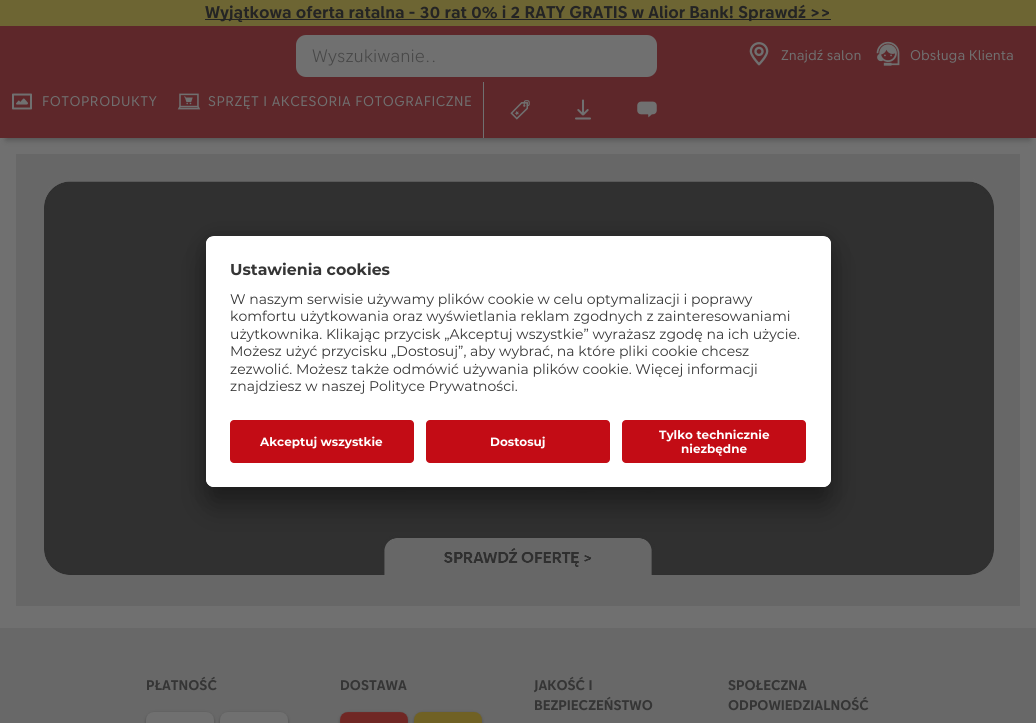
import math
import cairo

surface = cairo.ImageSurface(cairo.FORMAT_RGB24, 1036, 723)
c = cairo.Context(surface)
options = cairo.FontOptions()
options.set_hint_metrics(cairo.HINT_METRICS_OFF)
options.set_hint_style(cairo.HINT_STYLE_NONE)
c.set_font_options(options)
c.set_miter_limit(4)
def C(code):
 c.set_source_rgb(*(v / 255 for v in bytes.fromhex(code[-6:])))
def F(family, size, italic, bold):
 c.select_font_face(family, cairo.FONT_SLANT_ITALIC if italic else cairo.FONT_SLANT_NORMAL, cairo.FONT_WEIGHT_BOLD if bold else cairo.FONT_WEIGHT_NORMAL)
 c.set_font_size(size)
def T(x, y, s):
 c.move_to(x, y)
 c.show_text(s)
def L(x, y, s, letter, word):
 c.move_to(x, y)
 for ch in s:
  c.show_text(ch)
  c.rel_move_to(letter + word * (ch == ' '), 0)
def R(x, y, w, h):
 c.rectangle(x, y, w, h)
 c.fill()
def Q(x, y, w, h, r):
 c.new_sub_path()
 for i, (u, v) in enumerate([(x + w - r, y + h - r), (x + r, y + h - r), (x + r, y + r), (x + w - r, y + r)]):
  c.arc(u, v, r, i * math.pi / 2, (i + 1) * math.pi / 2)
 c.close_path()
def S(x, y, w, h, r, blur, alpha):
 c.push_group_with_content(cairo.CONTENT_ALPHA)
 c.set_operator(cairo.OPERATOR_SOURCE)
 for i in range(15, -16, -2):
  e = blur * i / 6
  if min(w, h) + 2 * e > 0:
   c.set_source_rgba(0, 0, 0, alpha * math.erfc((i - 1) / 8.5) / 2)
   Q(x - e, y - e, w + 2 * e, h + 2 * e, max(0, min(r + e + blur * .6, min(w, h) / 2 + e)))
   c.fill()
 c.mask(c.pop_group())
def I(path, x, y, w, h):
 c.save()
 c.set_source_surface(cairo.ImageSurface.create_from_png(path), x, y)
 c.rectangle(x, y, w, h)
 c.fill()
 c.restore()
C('707070')
c.paint()
C('6d6533')
R(0,0,1036,26)
C('242424')
R(205,19,626,1)
F('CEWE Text',17,0,1)
T(205,18,'Wyjątkowa oferta ratalna - 30 rat 0% i 2 RATY GRATIS w Alior Bank! Sprawdź >>')
C('545454')
S(6,40,1024,100,0,3,1)
C('5e272a')
R(0,26,1036,112)
C('707070')
Q(296,35,361,42,10)
c.fill()
F('CEWE Text Light',18,0,0)
C('474747')
T(312,62,'Wyszukiwanie..')
I('1.png',749,42,20,24)
F('CEWE Text',14,0,0)
C('707070')
T(781,60,'Znajdź salon')
I('2.png',876,41,24,25)
T(910,60,'Obsługa Klienta')
I('3.png',12,93,20,17)
L(42,106,'FOTOPRODUKTY',.5,0)
I('4.png',177,93,24,17)
L(208,106,'SPRZĘT I AKCESORIA FOTOGRAFICZNE',.5,0)
R(483,82,1,56)
I('5.png',510,100,20,20)
I('6.png',575,99,16,21)
I('7.png',637,101,20,17)
I('8.png',16,154,1004,452)
C('686868')
R(0,628,1036,95)
F('CEWE Text',14,0,1)
C('353535')
T(146,690,'PŁATNOŚĆ')
C('242424')
S(146,713,68,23,8,1.5,.4)
I('9.png',146,712,68,11)
S(220,713,68,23,8,1.5,.4)
I('9.png',220,712,68,11)
C('353535')
T(340,690,'DOSTAWA')
C('242424')
S(340,713,68,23,8,1.5,.4)
I('10.png',340,712,68,11)
S(414,713,68,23,8,1.5,.4)
I('11.png',414,712,68,11)
C('353535')
T(534,690,'JAKOŚĆ I')
T(534,710,'BEZPIECZEŃSTWO')
T(728,690,'SPOŁECZNA')
T(728,710,'ODPOWIEDZIALNOŚĆ')
C('000000')
S(206,256,625,251,8,14,.3)
S(206,241,625,251,8,13,.22)
C('ffffff')
Q(206,236,625,251,8)
c.fill()
c.save()
Q(206,236,625,251,8)
c.clip()
c.new_path()
c.move_to(214,236)
c.line_to(823,236)
c.curve_to(827.5,236,831,239.5,831,244)
c.line_to(831,412)
c.line_to(206,412)
c.line_to(206,244)
c.curve_to(206,239.5,209.5,236,214,236)
c.close_path()
c.clip()
R(206,237,625,175)
c.restore()
F('Montserrat',15.75,0,1)
C('353535')
T(230,275,'Ustawienia cookies')
F('Montserrat',14,0,0)
T(230,304,'W naszym serwisie używamy plików cookie w celu optymalizacji i poprawy')
T(230,321,'komfortu użytkowania oraz wyświetlania reklam zgodnych z zainteresowaniami')
T(230,339,'użytkownika. Klikając przycisk „Akceptuj wszystkie” wyrażasz zgodę na ich użycie.')
T(230,356,'Możesz użyć przycisku „Dostosuj”, aby wybrać, na które pliki cookie chcesz')
T(230,374,'zezwolić. Możesz także odmówić używania plików cookie. Więcej informacji')
T(230,391,'znajdziesz w naszej Polityce Prywatności.')
C('ffffff')
c.new_path()
c.move_to(206,412)
c.line_to(831,412)
c.line_to(831,479)
c.curve_to(831,483.5,827.5,487,823,487)
c.line_to(214,487)
c.curve_to(209.5,487,206,483.5,206,479)
c.close_path()
c.fill()
C('c30c15')
Q(230,420,184,43,4)
c.fill()
F('Montserrat',12,0,1)
C('ffffff')
T(260,446,'Akceptuj wszystkie')
C('c30c15')
Q(426,420,184,43,4)
c.fill()
C('ffffff')
T(490,446,'Dostosuj')
C('c30c15')
Q(622,420,184,43,4)
c.fill()
C('ffffff')
T(659,439,'Tylko technicznie')
T(681,453,'niezbędne')
surface.write_to_png('o.png')
